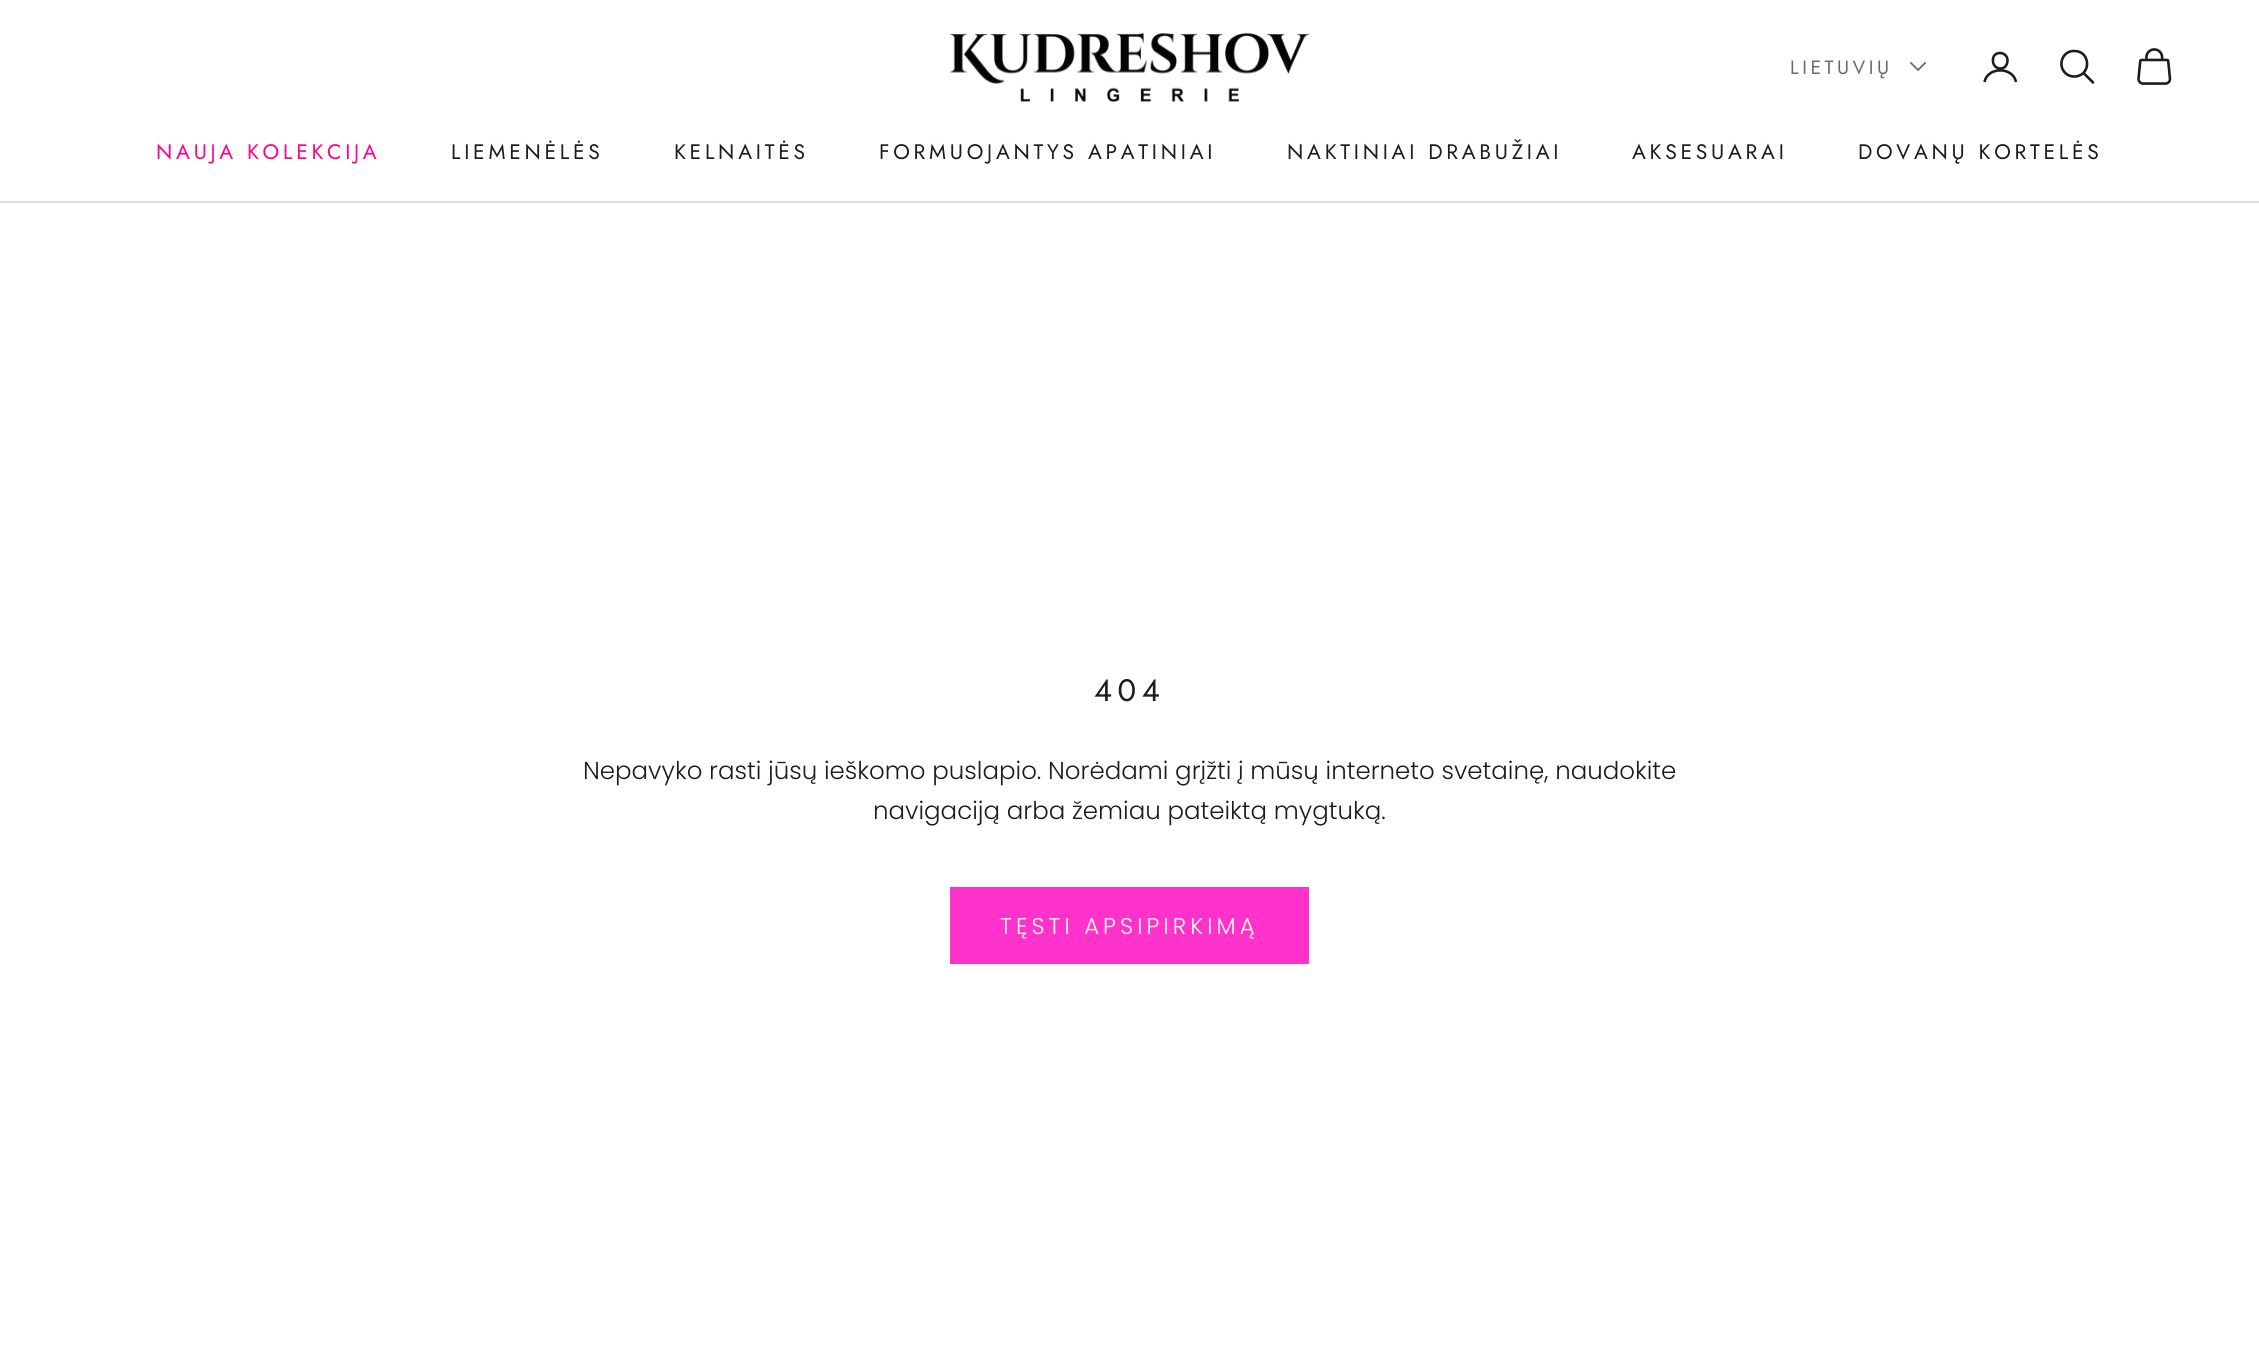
import math
import cairo

surface = cairo.ImageSurface(cairo.FORMAT_RGB24, 2259, 1353)
c = cairo.Context(surface)
options = cairo.FontOptions()
options.set_hint_metrics(cairo.HINT_METRICS_OFF)
options.set_hint_style(cairo.HINT_STYLE_NONE)
c.set_font_options(options)
c.set_miter_limit(4)
def C(code):
 c.set_source_rgb(*(v / 255 for v in bytes.fromhex(code[-6:])))
def F(family, size, italic, bold):
 c.select_font_face(family, cairo.FONT_SLANT_ITALIC if italic else cairo.FONT_SLANT_NORMAL, cairo.FONT_WEIGHT_BOLD if bold else cairo.FONT_WEIGHT_NORMAL)
 c.set_font_size(size)
def T(x, y, s):
 c.move_to(x, y)
 c.show_text(s)
def L(x, y, s, letter, word):
 c.move_to(x, y)
 for ch in s:
  c.show_text(ch)
  c.rel_move_to(letter + word * (ch == ' '), 0)
def R(x, y, w, h):
 c.rectangle(x, y, w, h)
 c.fill()
def I(path, x, y, w, h):
 c.save()
 c.set_source_surface(cairo.ImageSurface.create_from_png(path), x, y)
 c.rectangle(x, y, w, h)
 c.fill()
 c.restore()
C('ffffff')
c.paint()
C('dddddd')
R(0,201,2259,2)
I('1.png',950,33,359,69)
F('Jost',19.25,0,0)
C('6b6b6b')
L(1790,74,'LIETUVIŲ',3.5,0)
c.new_path()
c.move_to(1911,63)
c.line_to(1918,70)
c.line_to(1925,63)
c.set_line_width(1.8)
c.set_line_cap(cairo.LINE_CAP_SQUARE)
c.stroke()
c.new_path()
c.move_to(2007.5,61)
c.curve_to(2006.5,72.5,1991.5,70,1993,59)
c.curve_to(1994,50,2008,51.5,2007.5,61)
c.close_path()
C('1c1c1c')
c.set_line_width(2.6)
c.set_line_cap(cairo.LINE_CAP_ROUND)
c.set_line_join(cairo.LINE_JOIN_ROUND)
c.stroke()
c.new_path()
c.move_to(1984.5,82)
c.curve_to(1987.5,66.5,2013,66.5,2016,82)
c.set_line_cap(cairo.LINE_CAP_BUTT)
c.set_line_join(cairo.LINE_JOIN_MITER)
c.stroke()
c.new_path()
c.move_to(2074.5,51)
c.curve_to(2061,50.5,2056.5,68.5,2068,75)
c.curve_to(2070,76,2072,76.5,2074.5,76.5)
c.curve_to(2091.5,76,2091,51,2074.5,51)
c.close_path()
c.stroke()
c.new_path()
c.move_to(2084,73.5)
c.line_to(2093,82.5)
c.set_line_cap(cairo.LINE_CAP_ROUND)
c.stroke()
I('2.png',2137,48,35,37)
F('Jost',21,0,0)
C('ff0091')
L(156,159,'NAUJA KOLEKCIJA',3.75,0)
C('1c1c1c')
L(451,159,'LIEMENĖLĖS',3.75,0)
L(674,159,'KELNAITĖS',3.75,0)
L(879,159,'FORMUOJANTYS APATINIAI',3.75,0)
L(1287,159,'NAKTINIAI DRABUŽIAI',3.75,0)
L(1632,159,'AKSESUARAI',3.75,0)
L(1858,159,'DOVANŲ KORTELĖS',3.75,0)
F('Jost',31,0,0)
L(1094,701,'404',5.5,0)
F('Poppins Light',24.5,0,0)
T(583,779,'Nepavyko rasti jūsų ieškomo puslapio. Norėdami grįžti į mūsų interneto svetainę, naudokite')
T(873,819,'navigaciją arba žemiau pateiktą mygtuką.')
C('ff33cc')
c.rectangle(951,888,357,75)
c.fill_preserve()
c.set_line_width(2)
c.set_line_cap(cairo.LINE_CAP_BUTT)
c.stroke()
F('Poppins Light',22.75,0,0)
C('ffffff')
L(1000,934,'TĘSTI APSIPIRKIMĄ',4.1,0)
surface.write_to_png('o.png')
